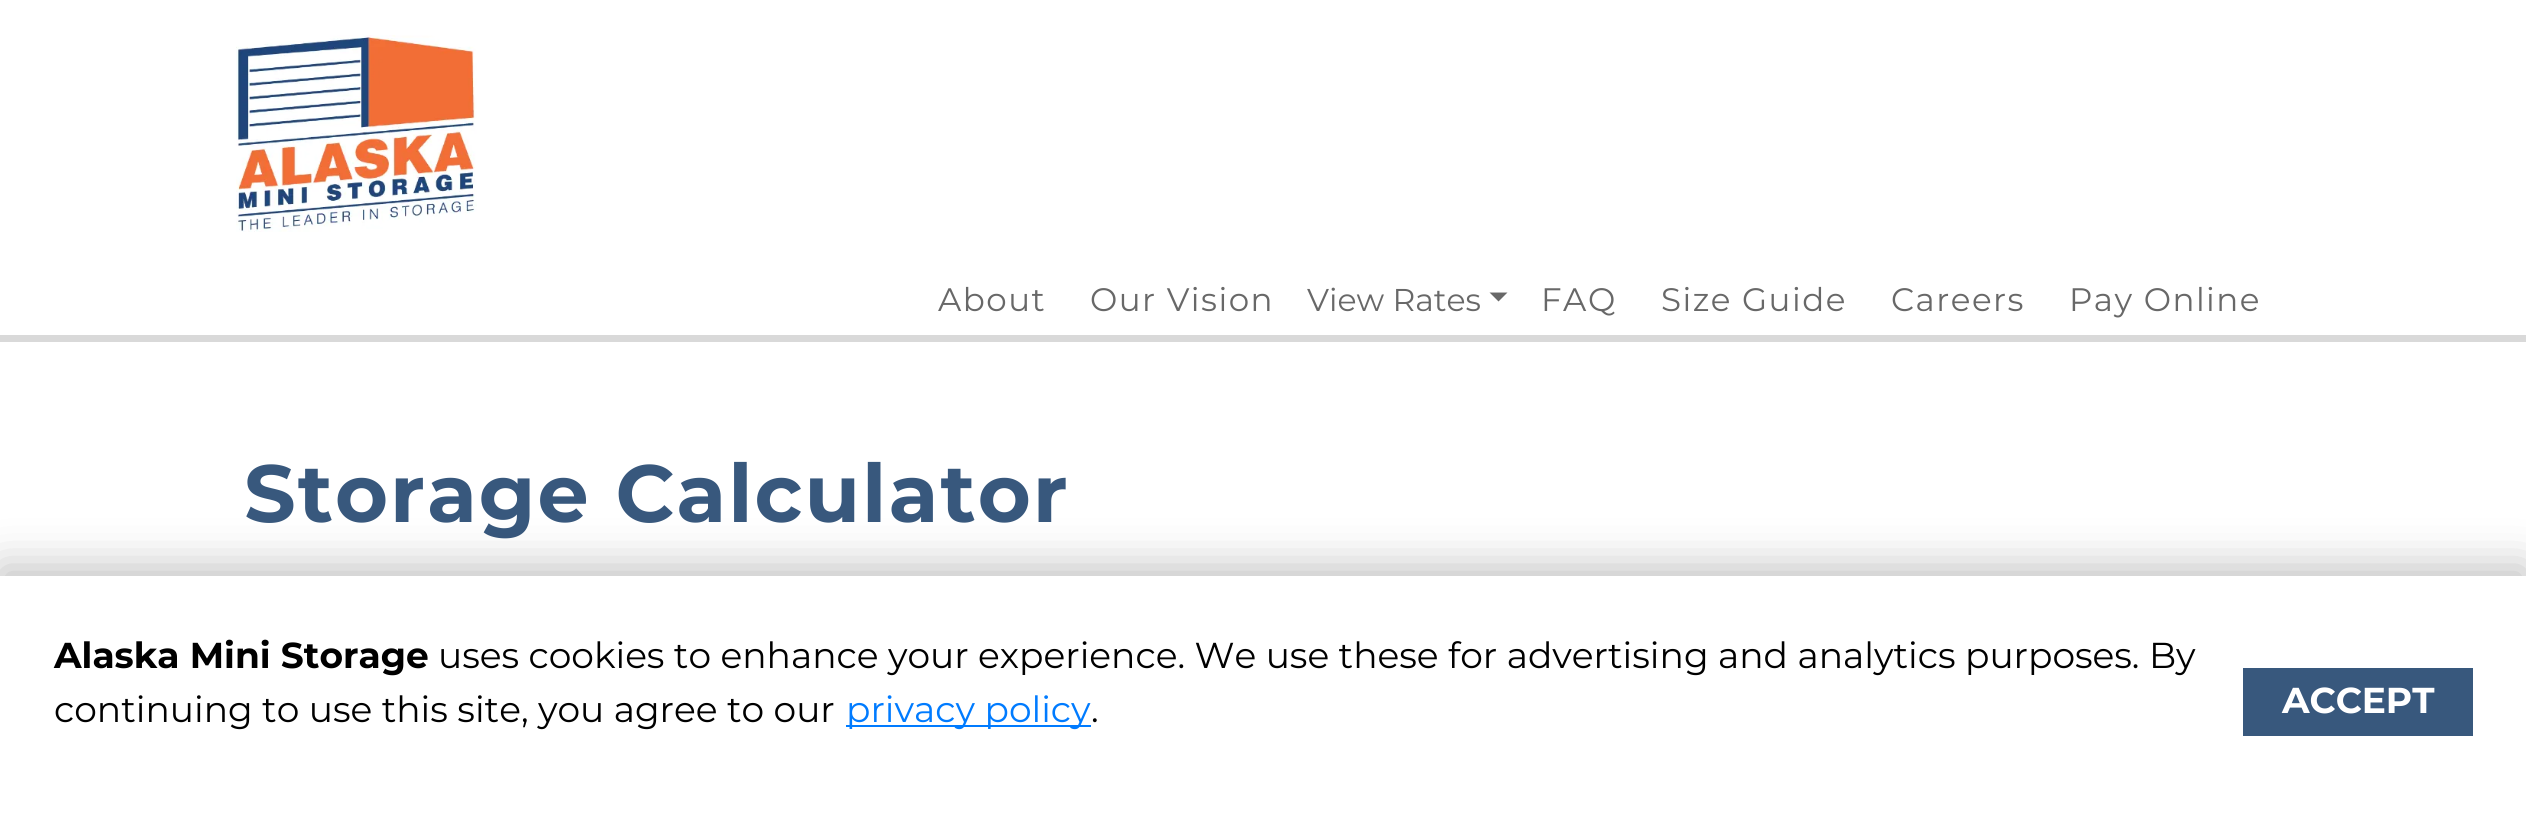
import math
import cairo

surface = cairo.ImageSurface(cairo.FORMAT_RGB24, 2526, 828)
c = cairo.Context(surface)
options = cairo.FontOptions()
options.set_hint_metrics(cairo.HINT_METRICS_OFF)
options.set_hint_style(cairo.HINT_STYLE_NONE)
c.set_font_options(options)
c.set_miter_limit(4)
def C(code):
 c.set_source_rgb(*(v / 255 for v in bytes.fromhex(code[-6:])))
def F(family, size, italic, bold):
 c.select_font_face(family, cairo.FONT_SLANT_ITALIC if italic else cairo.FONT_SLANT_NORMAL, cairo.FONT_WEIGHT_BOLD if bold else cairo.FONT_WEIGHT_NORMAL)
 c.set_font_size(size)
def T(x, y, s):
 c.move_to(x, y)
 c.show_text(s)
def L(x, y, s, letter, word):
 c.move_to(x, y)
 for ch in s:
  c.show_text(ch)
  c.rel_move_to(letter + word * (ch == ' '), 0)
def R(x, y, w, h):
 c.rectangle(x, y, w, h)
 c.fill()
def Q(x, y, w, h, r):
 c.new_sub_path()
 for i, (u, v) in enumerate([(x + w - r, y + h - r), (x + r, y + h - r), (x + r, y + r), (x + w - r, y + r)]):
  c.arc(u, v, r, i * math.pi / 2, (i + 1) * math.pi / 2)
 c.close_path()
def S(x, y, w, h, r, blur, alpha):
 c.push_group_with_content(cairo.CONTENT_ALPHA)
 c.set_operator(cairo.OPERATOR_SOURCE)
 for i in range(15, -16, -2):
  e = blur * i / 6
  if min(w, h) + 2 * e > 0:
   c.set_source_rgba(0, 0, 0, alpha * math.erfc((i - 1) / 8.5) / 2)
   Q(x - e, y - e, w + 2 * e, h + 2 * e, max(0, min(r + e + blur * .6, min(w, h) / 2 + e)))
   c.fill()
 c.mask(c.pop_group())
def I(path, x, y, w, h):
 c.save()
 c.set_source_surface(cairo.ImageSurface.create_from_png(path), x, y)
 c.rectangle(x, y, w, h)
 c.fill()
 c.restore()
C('ffffff')
c.paint()
I('1.png',236,35,241,197)
C('d9d9d9')
R(0,335,2526,7)
F('Montserrat',32.5,0,0)
C('686868')
L(938,311,'About',1.5,0)
L(1090,311,'Our Vision',1.5,0)
F('Montserrat',31.5,0,0)
T(1307,311,'View Rates')
c.new_path()
c.move_to(1489.5,292.5)
c.line_to(1507.5,292.5)
c.line_to(1498.5,301.5)
c.close_path()
c.fill()
F('Montserrat',32.5,0,0)
L(1541,311,'FAQ',1.5,0)
L(1661,311,'Size Guide',1.5,0)
L(1891,311,'Careers',1.5,0)
L(2069,311,'Pay Online',1.5,0)
F('Montserrat',81,0,1)
C('38587d')
L(244,522,'Storage Calculator',2,0)
C('000000')
S(0,567,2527,252,0,22.5,.25)
C('ffffff')
R(0,576,2526,252)
F('Montserrat',36,0,1)
C('000000')
T(54,668,'Alaska Mini Storage')
F('Montserrat',36,0,0)
T(438,668,'uses cookies to enhance your experience. We use these for advertising and analytics purposes. By')
T(54,722,'continuing to use this site, you agree to our')
C('007bff')
R(846,725,245,2)
T(846,722,'privacy policy')
C('000000')
T(1091,722,'.')
C('38587d')
R(2243,668,230,68)
F('Montserrat',36,0,1)
C('ffffff')
T(2282,713,'ACCEPT')
surface.write_to_png('o.png')
